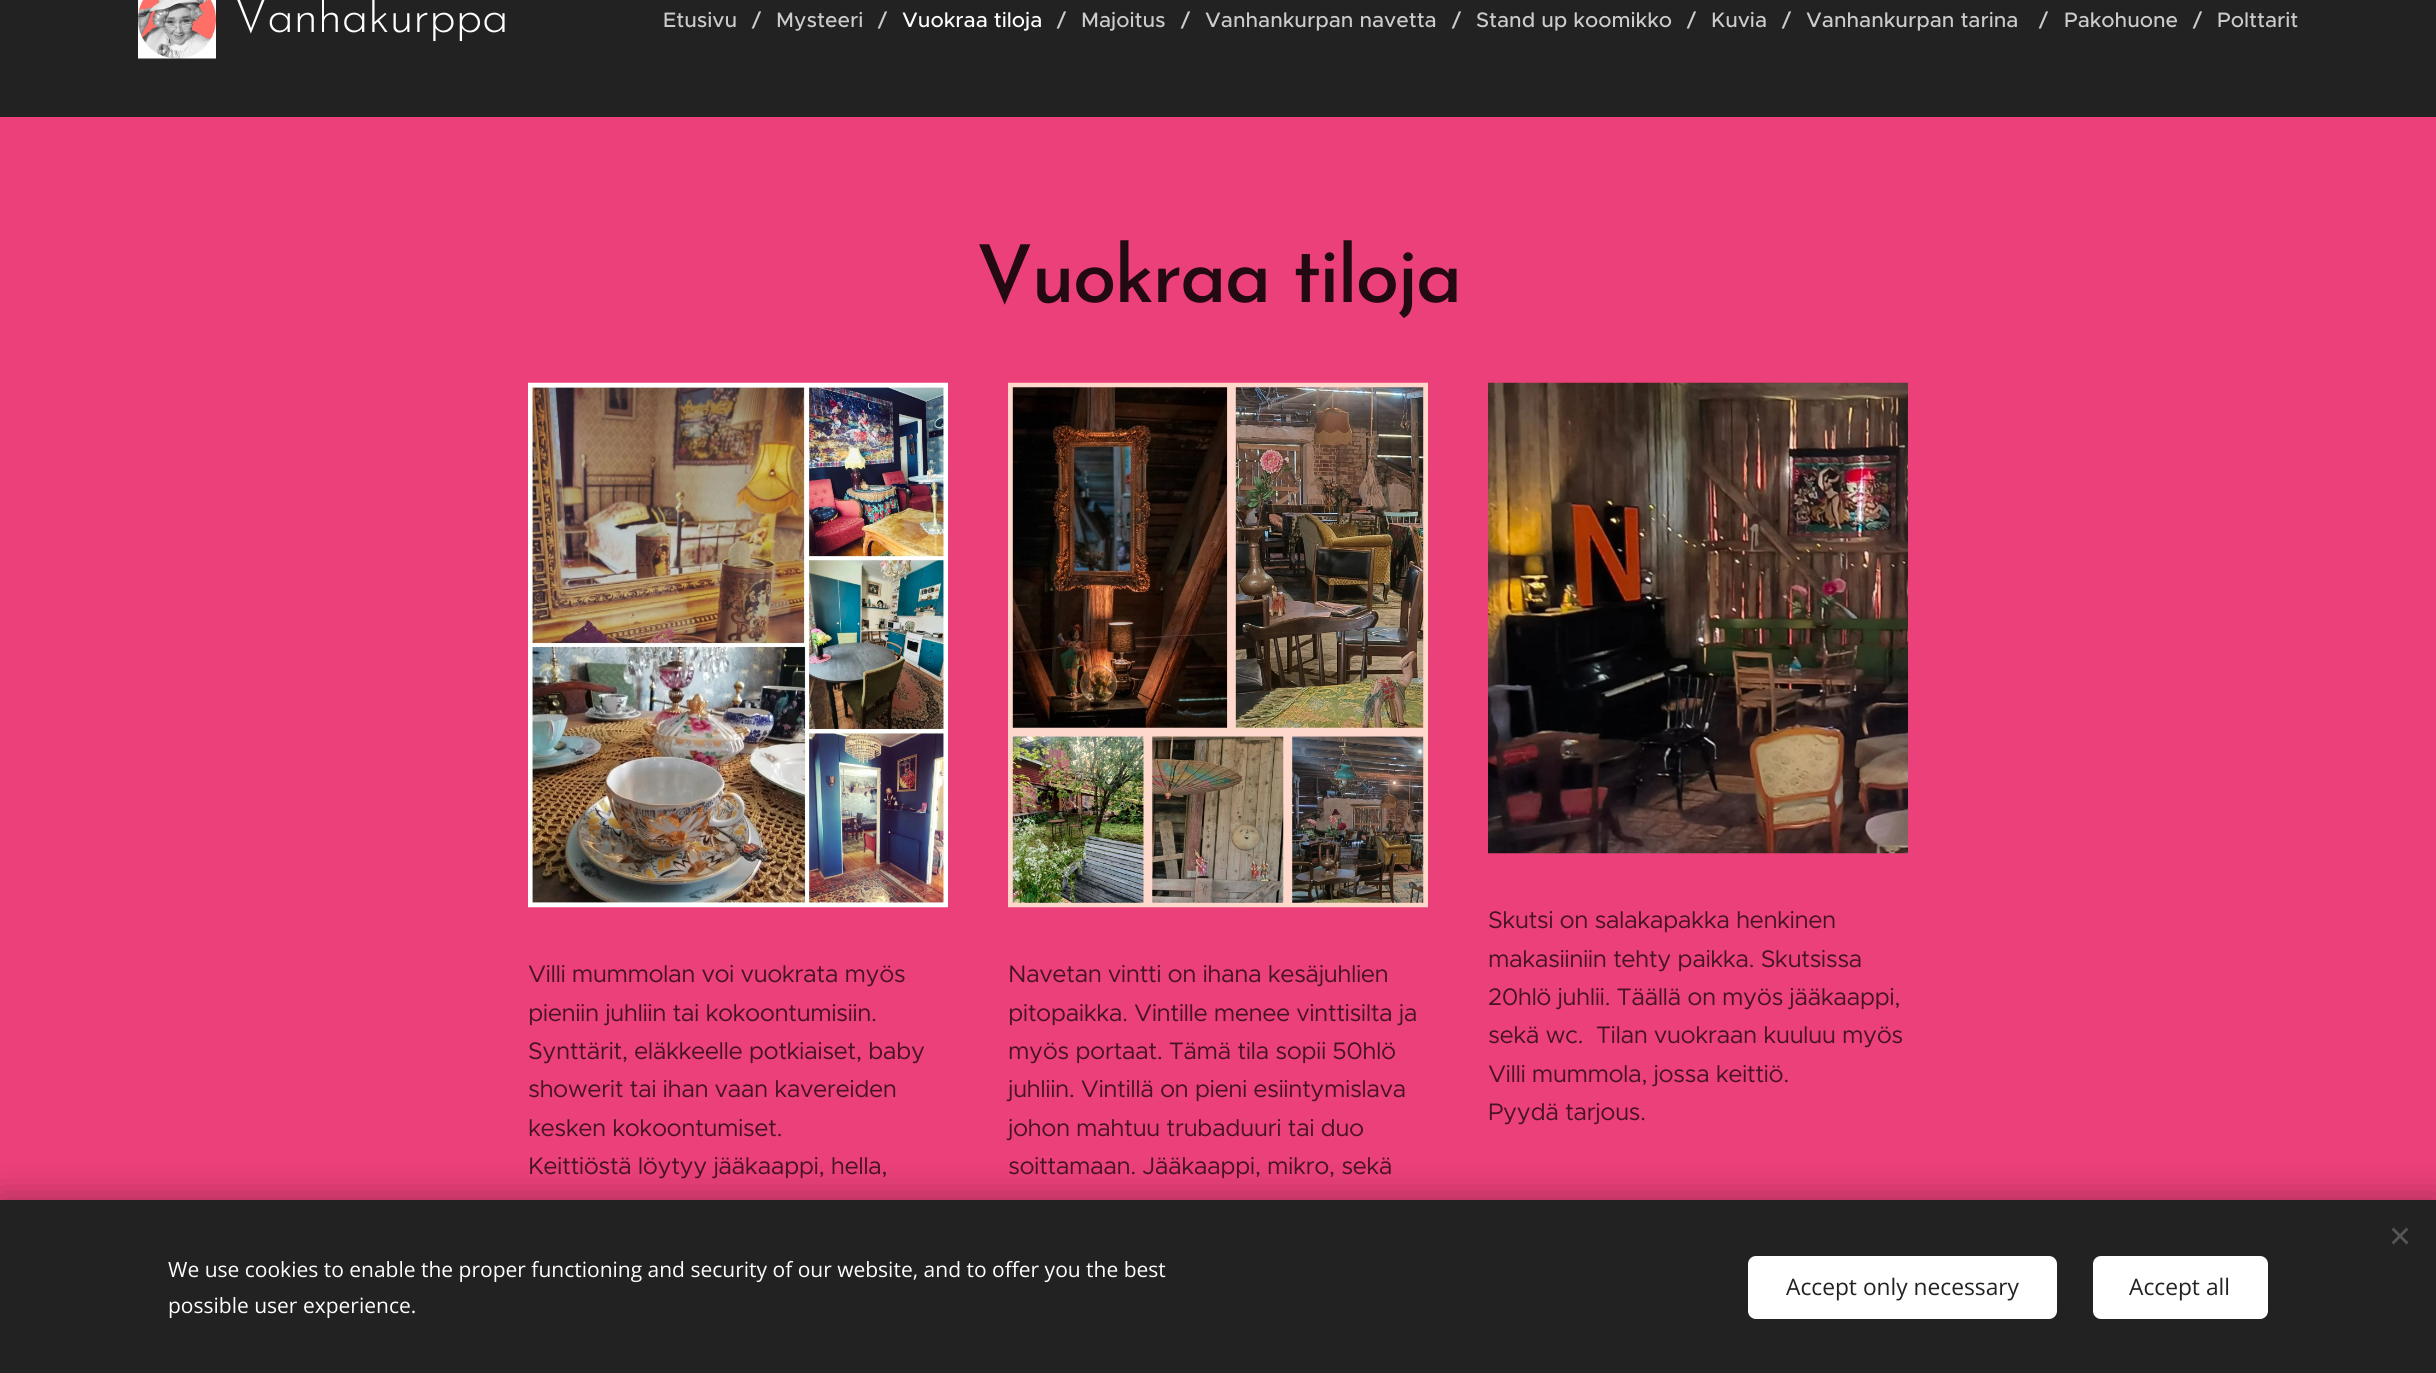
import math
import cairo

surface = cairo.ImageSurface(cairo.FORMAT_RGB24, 2436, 1373)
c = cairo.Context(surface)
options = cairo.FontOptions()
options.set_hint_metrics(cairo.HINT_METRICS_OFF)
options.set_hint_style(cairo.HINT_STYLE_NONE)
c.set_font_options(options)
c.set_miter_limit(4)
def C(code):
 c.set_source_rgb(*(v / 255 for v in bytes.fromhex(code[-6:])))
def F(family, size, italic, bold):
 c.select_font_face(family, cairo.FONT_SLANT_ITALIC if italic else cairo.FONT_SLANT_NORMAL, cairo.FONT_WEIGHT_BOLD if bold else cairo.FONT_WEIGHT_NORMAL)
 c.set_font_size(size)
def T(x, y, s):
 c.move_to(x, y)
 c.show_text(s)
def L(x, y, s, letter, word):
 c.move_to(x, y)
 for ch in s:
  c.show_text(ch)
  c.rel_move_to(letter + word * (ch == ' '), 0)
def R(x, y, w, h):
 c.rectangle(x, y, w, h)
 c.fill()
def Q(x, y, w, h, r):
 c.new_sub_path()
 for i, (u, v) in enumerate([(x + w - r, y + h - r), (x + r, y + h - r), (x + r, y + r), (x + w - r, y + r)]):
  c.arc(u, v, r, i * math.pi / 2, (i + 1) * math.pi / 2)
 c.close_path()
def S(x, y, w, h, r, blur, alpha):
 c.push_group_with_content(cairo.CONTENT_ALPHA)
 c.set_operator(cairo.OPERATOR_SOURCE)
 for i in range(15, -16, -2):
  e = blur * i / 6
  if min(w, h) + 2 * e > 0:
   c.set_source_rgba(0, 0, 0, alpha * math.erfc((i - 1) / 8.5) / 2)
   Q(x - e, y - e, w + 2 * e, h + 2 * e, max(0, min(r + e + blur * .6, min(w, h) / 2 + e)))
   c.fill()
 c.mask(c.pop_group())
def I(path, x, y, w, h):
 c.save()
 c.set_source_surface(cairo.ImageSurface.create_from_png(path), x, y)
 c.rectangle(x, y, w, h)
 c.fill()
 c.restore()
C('ec407a')
c.paint()
C('222222')
R(0,0,2436,117)
I('1.png',138,0,78,59)
F('Josefin Sans Light',48,0,0)
C('ffffff')
L(234,32,'Vanhakurppa',-.5,0)
F('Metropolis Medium',21,0,0)
C('cccccc')
T(663,27,'Etusivu')
T(752,27,'/')
T(776,27,'Mysteeri')
T(878,27,'/')
C('ffffff')
T(902,27,'Vuokraa tiloja')
C('cccccc')
T(1057,27,'/')
T(1081,27,'Majoitus')
T(1181,27,'/')
T(1205,27,'Vanhankurpan navetta')
T(1452,27,'/')
T(1476,27,'Stand up koomikko')
T(1687,27,'/')
T(1711,27,'Kuvia')
T(1782,27,'/')
T(1806,27,'Vanhankurpan tarina')
T(2039,27,'/')
T(2064,27,'Pakohuone')
T(2193,27,'/')
T(2217,27,'Polttarit')
F('Josefin Sans Medium',79.5,0,0)
C('230a12')
L(976,302,'Vuokraa tiloja',-2.4,0)
I('2.png',528,382,420,526)
F('Metropolis',24,0,0)
C('471325')
L(528,982,'Villi mummolan voi vuokrata myös',-.5,0)
L(528,1021,'pieniin juhliin tai kokoontumisiin.',-.5,0)
L(528,1059,'Synttärit, eläkkeelle potkiaiset, baby',-.5,0)
L(528,1097,'showerit tai ihan vaan kavereiden',-.5,0)
L(528,1136,'kesken kokoontumiset.',-.5,0)
L(528,1174,'Keittiöstä löytyy jääkaappi, hella,',-.5,0)
I('3.png',1008,382,420,526)
L(1008,982,'Navetan vintti on ihana kesäjuhlien',-.5,0)
L(1008,1021,'pitopaikka. Vintille menee vinttisilta ja',-.5,0)
L(1008,1059,'myös portaat. Tämä tila sopii 50hlö',-.5,0)
L(1008,1097,'juhliin. Vintillä on pieni esiintymislava',-.5,0)
L(1008,1136,'johon mahtuu trubaduuri tai duo',-.5,0)
L(1008,1174,'soittamaan. Jääkaappi, mikro, sekä',-.5,0)
I('4.png',1488,382,420,472)
L(1488,928,'Skutsi on salakapakka henkinen',-.5,0)
L(1488,967,'makasiiniin tehty paikka. Skutsissa',-.5,0)
L(1488,1005,'20hlö juhlii. Täällä on myös jääkaappi,',-.5,0)
L(1488,1043,'sekä wc.  Tilan vuokraan kuuluu myös',-.5,0)
L(1488,1082,'Villi mummola, jossa keittiö.',-.5,0)
L(1488,1120,'Pyydä tarjous.',-.5,0)
C('000000')
S(0,1200,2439,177,0,19,.33)
C('222222')
R(0,1200,2436,173)
C('555555')
c.new_path()
c.move_to(2391.5,1242.5)
c.line_to(2406.5,1227.5)
c.line_to(2408.5,1229.5)
c.line_to(2393.5,1244.5)
c.close_path()
c.fill()
c.new_path()
c.move_to(2393.5,1227.5)
c.line_to(2408.5,1242.5)
c.line_to(2406.5,1244.5)
c.line_to(2391.5,1229.5)
c.close_path()
c.fill()
F('Open Sans',21,0,0)
C('ffffff')
T(168,1277,'We use cookies to enable the proper functioning and security of our website, and to offer you the best')
T(168,1313,'possible user experience.')
Q(1748,1256,309,63,8)
c.fill()
F('Open Sans',22.75,0,0)
C('222222')
T(1786,1295,'Accept only necessary')
C('ffffff')
Q(2093,1256,175,63,8)
c.fill()
C('222222')
T(2129,1295,'Accept all')
surface.write_to_png('o.png')
